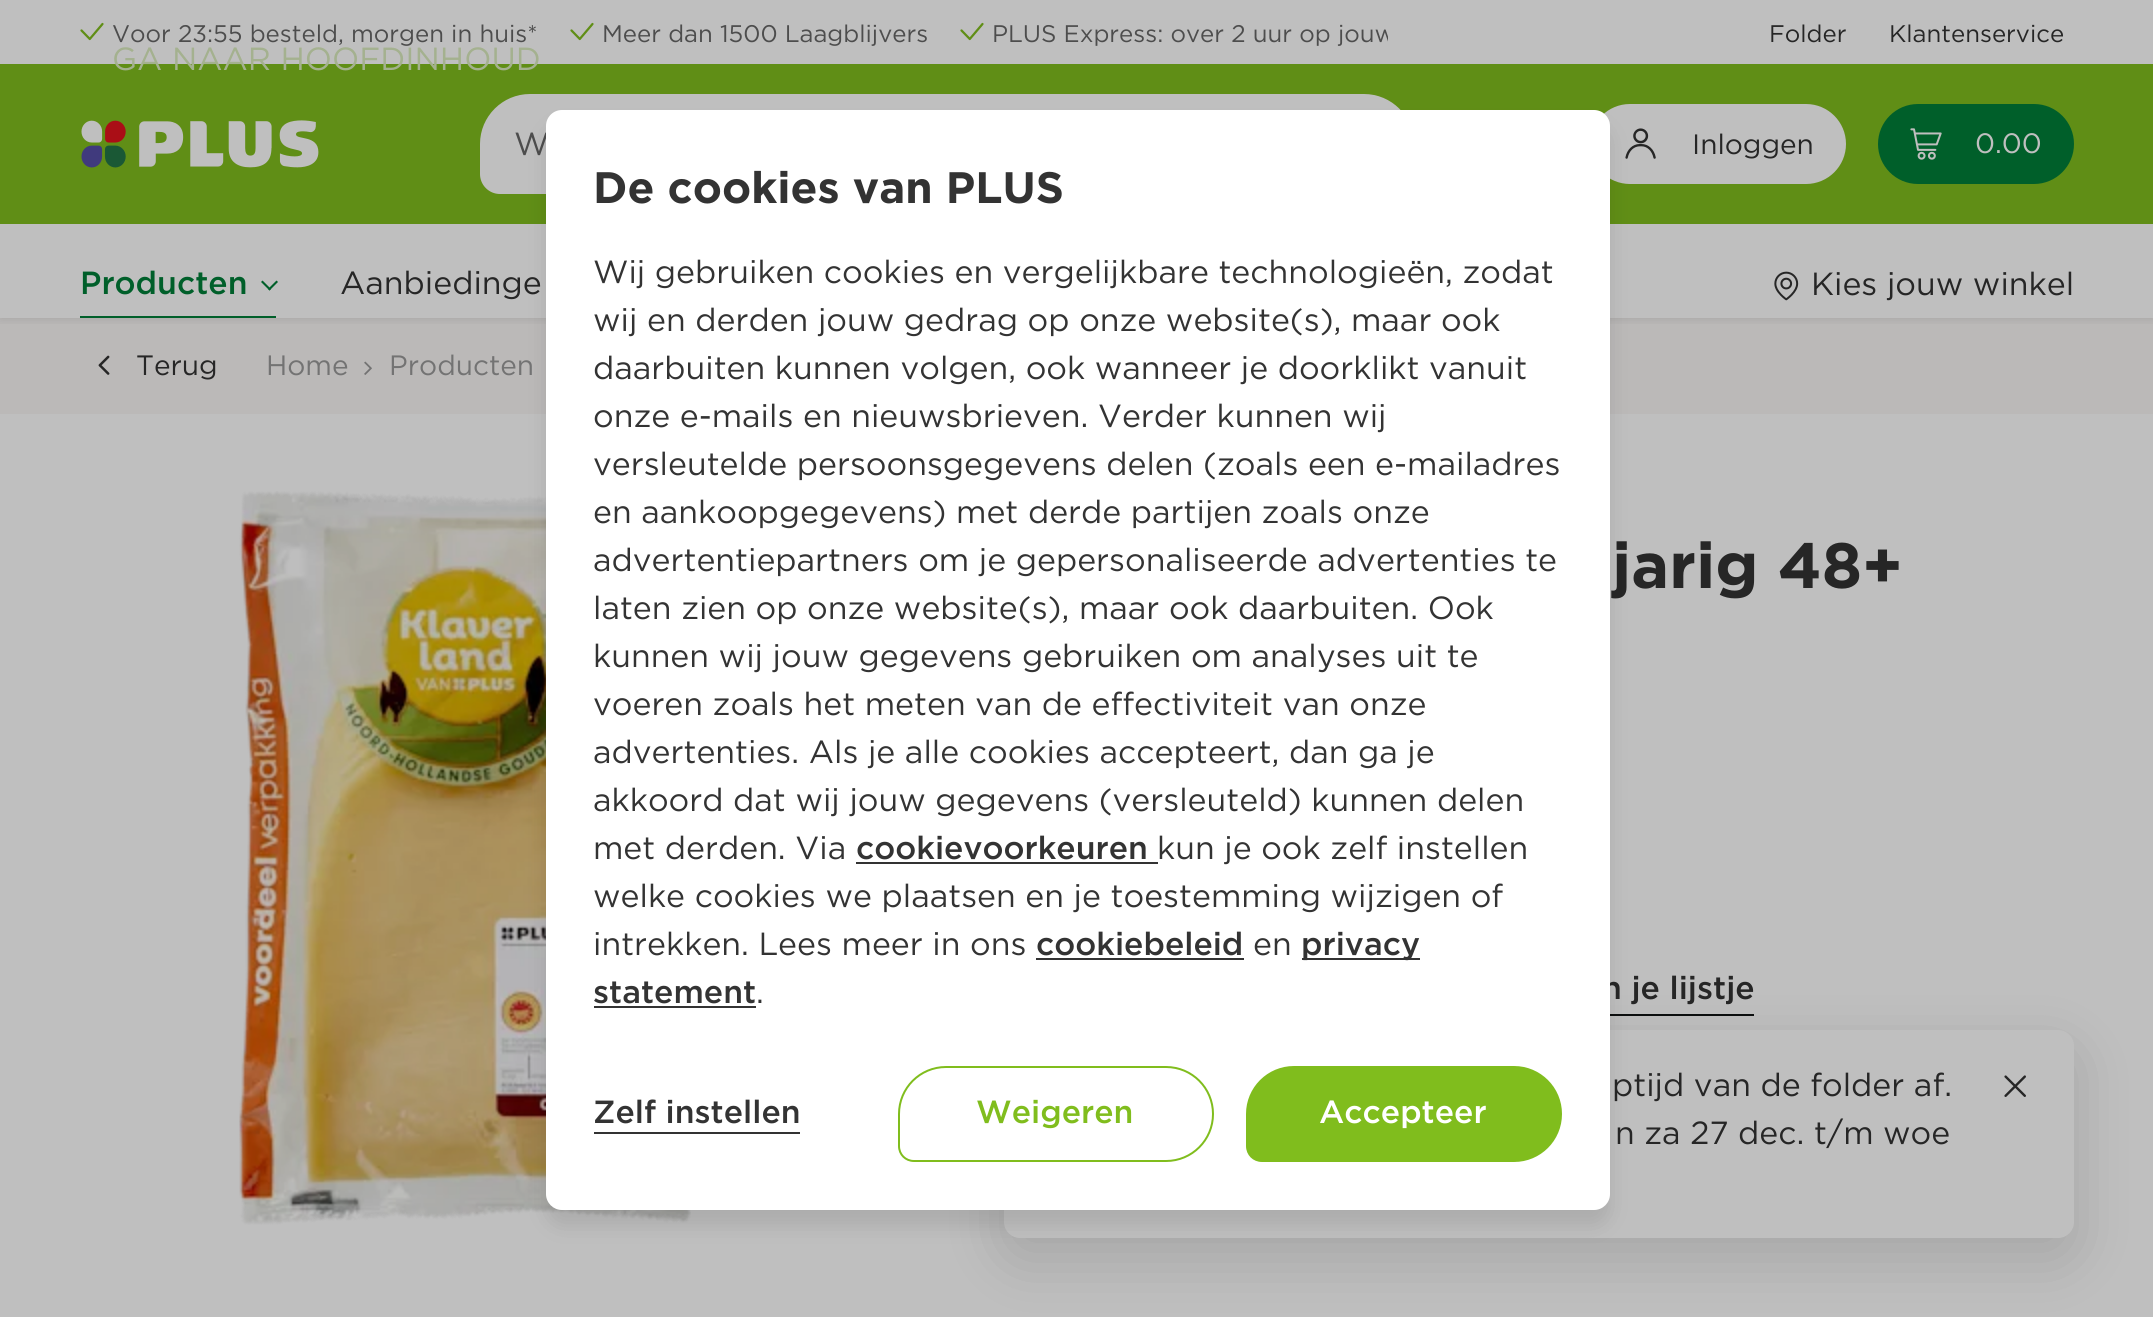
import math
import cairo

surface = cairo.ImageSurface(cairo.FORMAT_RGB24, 2153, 1317)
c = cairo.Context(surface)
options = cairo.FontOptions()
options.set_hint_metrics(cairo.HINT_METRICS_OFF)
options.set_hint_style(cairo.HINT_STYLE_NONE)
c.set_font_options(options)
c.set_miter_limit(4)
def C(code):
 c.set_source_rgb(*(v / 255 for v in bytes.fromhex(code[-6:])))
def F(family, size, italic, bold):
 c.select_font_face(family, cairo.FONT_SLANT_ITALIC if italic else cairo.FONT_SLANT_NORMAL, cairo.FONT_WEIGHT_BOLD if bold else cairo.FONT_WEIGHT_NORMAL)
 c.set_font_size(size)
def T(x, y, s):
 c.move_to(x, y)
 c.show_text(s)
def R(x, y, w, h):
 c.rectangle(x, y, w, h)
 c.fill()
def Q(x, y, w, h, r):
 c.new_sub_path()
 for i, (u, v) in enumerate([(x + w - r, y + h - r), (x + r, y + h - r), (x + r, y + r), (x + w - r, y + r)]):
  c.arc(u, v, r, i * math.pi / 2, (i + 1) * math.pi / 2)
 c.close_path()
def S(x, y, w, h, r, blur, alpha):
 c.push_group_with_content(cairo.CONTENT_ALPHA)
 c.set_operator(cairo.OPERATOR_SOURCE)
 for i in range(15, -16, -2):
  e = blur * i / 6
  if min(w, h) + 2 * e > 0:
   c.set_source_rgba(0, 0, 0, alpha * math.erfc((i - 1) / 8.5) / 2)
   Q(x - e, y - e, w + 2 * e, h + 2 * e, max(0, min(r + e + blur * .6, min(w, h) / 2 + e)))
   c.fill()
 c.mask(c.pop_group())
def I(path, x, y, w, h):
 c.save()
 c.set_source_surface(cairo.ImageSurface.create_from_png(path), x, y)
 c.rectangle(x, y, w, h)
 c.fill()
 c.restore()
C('bfbfbf')
c.paint()
C('bbb9b8')
R(0,318,2153,96)
c.save()
c.rectangle(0,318,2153,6)
c.clip()
C('101214')
S(0,2,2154,318,0,5,.1)
c.restore()
I('1.png',80,22,24,19)
F('Gotham',24,0,0)
C('4d4d4d')
T(112,42,'Voor 23:55 besteld, morgen in huis*')
I('1.png',570,22,24,19)
T(602,42,'Meer dan 1500 Laagblijvers')
I('1.png',960,22,24,19)
c.save()
c.rectangle(80,8,1308,48)
c.clip()
T(992,42,'PLUS Express: over 2 uur op jouw')
c.restore()
C('262626')
T(1769,42,'Folder')
T(1889,42,'Klantenservice')
C('608e16')
R(0,64,2153,160)
I('2.png',81,120,238,48)
C('bfbfbf')
c.new_path()
c.move_to(530,95)
c.line_to(1364,95)
c.curve_to(1391,95,1413,117,1413,144)
c.curve_to(1413,171,1391,193,1364,193)
c.line_to(500,193)
c.curve_to(489.5,193,481,184.5,481,174)
c.line_to(481,144)
c.curve_to(481,117,503,95,530,95)
c.close_path()
c.fill_preserve()
c.stroke()
F('Gotham',32,0,0)
C('4d4d4d')
T(514,155,'W')
C('bfbfbf')
Q(1590,104,256,80,40)
c.fill()
I('3.png',1625,128,31,31)
F('Gotham',28,0,0)
C('262626')
T(1692,154,'Inloggen')
C('005f2a')
Q(1878,104,196,80,40)
c.fill()
I('4.png',1910,128,32,32)
C('bfbfbf')
T(1975,153,'0.00')
C('005f2a')
R(80,316,196,2)
F('Gotham Medium',32,0,0)
T(80,294,'Producten')
c.new_path()
c.move_to(268,289)
c.line_to(276.5,280.5)
c.line_to(278,282)
c.line_to(269.5,290.5)
c.close_path()
c.fill()
c.new_path()
c.move_to(261,282)
c.line_to(262.5,280.5)
c.line_to(271,289)
c.line_to(269.5,290.5)
c.close_path()
c.fill()
F('Gotham',32,0,0)
C('262626')
T(340,294,'Aanbiedinge')
I('5.png',1774,271,25,30)
T(1811,295,'Kies jouw winkel')
I('6.png',98,355,12,20)
F('Gotham',28,0,0)
T(136,375,'Terug')
C('737373')
T(266,375,'Home')
I('7.png',364,361,8,14)
T(389,375,'Producten')
I('8.png',239,491,452,734)
F('Gotham',64,0,1)
C('262626')
T(1612,588,'jarig 48+')
C('0c0e0e')
R(1610,1014,144,2)
F('Gotham Medium',32,0,0)
C('262626')
T(1602,999,'n je lijstje')
F('Gotham',32,0,0)
C('a4b18f')
T(112,70,'GA NAAR HOOFDINHOUD')
C('000000')
S(1004,1050,1070,208,16,30,.14)
C('bfbfbf')
Q(1004,1030,1070,208,16)
c.fill()
C('262626')
T(1612,1096,'ptijd van de folder af.')
T(1615,1144,'n za 27 dec. t/m woe')
I('9.png',2004,1075,22,22)
C('000000')
S(546,126,1064,1100,16,10,.1)
C('ffffff')
Q(546,110,1064,1100,16)
c.fill()
F('Gotham',44,0,1)
C('333333')
T(593,203,'De cookies van PLUS')
F('Gotham',32,0,0)
T(593,283,'Wij gebruiken cookies en vergelijkbare technologieën, zodat')
T(593,331,'wij en derden jouw gedrag op onze website(s), maar ook')
T(593,379,'daarbuiten kunnen volgen, ook wanneer je doorklikt vanuit')
T(593,427,'onze e-mails en nieuwsbrieven. Verder kunnen wij')
T(593,475,'versleutelde persoonsgegevens delen (zoals een e-mailadres')
T(593,523,'en aankoopgegevens) met derde partijen zoals onze')
T(593,571,'advertentiepartners om je gepersonaliseerde advertenties te')
T(593,619,'laten zien op onze website(s), maar ook daarbuiten. Ook')
T(593,667,'kunnen wij jouw gegevens gebruiken om analyses uit te')
T(593,715,'voeren zoals het meten van de effectiviteit van onze')
T(593,763,'advertenties. Als je alle cookies accepteert, dan ga je')
T(593,811,'akkoord dat wij jouw gegevens (versleuteld) kunnen delen')
T(593,859,'met derden. Via')
F('Gotham Medium',32,0,0)
T(856,859,'cookievoorkeuren')
R(856,862,302,2)
F('Gotham',32,0,0)
T(1157,859,'kun je ook zelf instellen')
T(593,907,'welke cookies we plaatsen en je toestemming wijzigen of')
T(593,955,'intrekken. Lees meer in ons')
F('Gotham Medium',32,0,0)
T(1036,955,'cookiebeleid')
R(1036,958,208,2)
F('Gotham',32,0,0)
T(1253,955,'en')
R(1302,958,118,2)
F('Gotham Medium',32,0,0)
T(1301,955,'privacy')
T(593,1003,'statement')
R(594,1006,162,2)
F('Gotham',32,0,0)
T(756,1003,'.')
F('Gotham Medium',32,0,0)
T(593,1123,'Zelf instellen')
R(594,1132,206,2)
c.new_path()
c.move_to(946,1067)
c.line_to(1166,1067)
c.curve_to(1192,1067,1213,1088,1213,1114)
c.curve_to(1213,1140,1192,1161,1166,1161)
c.line_to(914,1161)
c.curve_to(905.5,1161,899,1154.5,899,1146)
c.line_to(899,1114)
c.curve_to(899,1088,920,1067,946,1067)
c.close_path()
C('80bd1d')
c.stroke()
T(976,1123,'Weigeren')
c.new_path()
c.move_to(1294,1067)
c.line_to(1514,1067)
c.curve_to(1540,1067,1561,1088,1561,1114)
c.curve_to(1561,1140,1540,1161,1514,1161)
c.line_to(1262,1161)
c.curve_to(1253.5,1161,1247,1154.5,1247,1146)
c.line_to(1247,1114)
c.curve_to(1247,1088,1268,1067,1294,1067)
c.close_path()
c.fill_preserve()
c.stroke()
C('ffffff')
T(1319,1123,'Accepteer')
surface.write_to_png('o.png')
